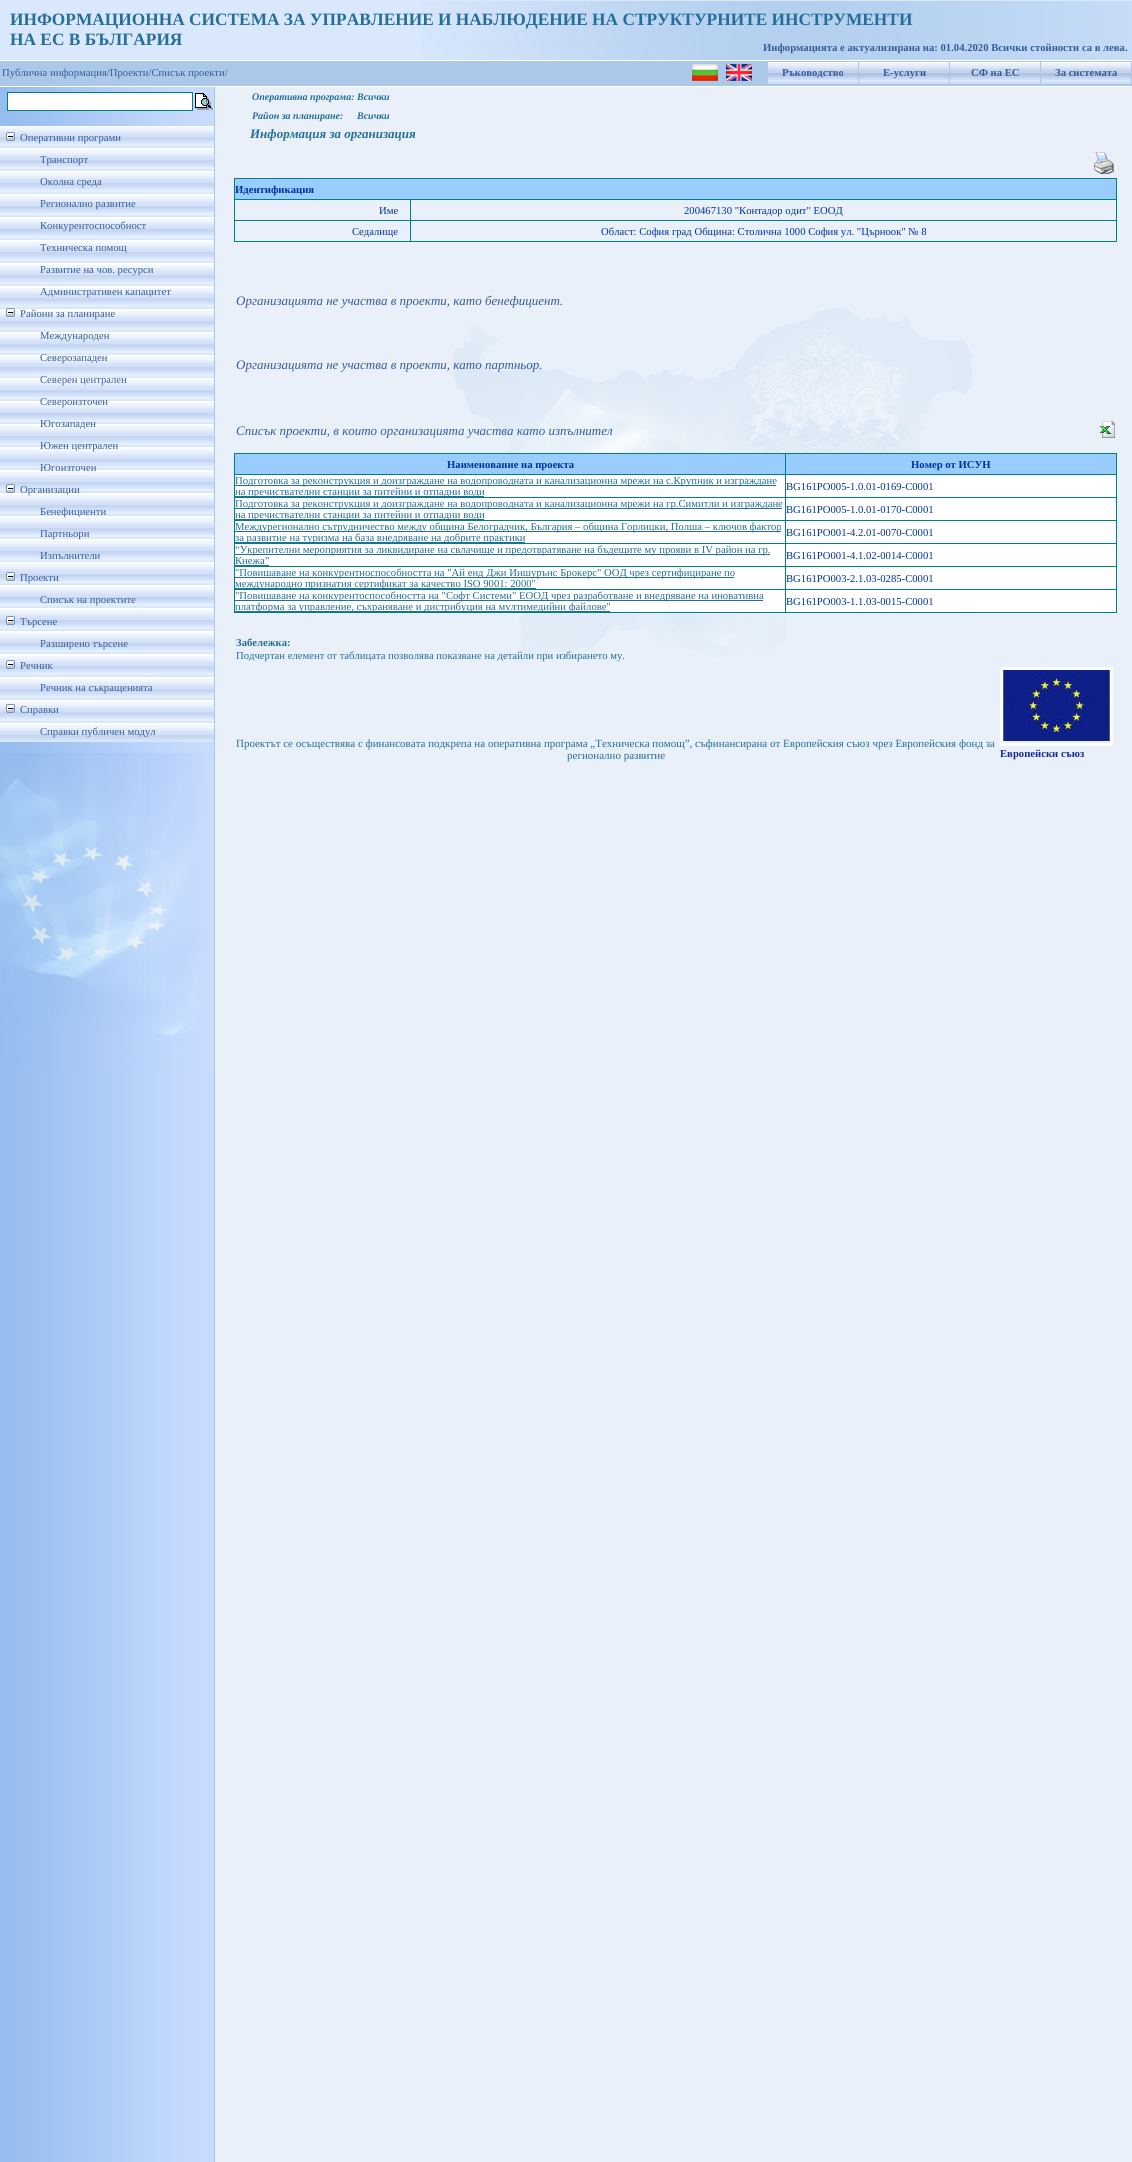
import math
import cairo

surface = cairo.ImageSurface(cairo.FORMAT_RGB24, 1132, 2162)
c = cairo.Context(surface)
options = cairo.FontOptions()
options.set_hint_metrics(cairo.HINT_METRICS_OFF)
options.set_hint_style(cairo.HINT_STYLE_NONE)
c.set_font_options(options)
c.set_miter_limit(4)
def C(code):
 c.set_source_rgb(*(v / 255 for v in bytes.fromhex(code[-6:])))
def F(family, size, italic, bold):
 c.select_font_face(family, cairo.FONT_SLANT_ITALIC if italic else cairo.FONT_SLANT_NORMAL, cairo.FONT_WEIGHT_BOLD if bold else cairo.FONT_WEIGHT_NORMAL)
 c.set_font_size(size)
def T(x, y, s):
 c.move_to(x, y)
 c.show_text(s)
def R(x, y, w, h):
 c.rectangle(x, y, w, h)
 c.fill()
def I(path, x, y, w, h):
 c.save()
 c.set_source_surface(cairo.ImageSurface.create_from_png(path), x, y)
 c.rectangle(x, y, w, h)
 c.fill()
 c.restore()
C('ffffff')
c.paint()
I('1.png',0,87,1132,2075)
C('dae8fd')
R(0,0,1132,60)
I('2.png',421,1,711,59)
F('Liberation Serif',17.33,0,1)
C('246e99')
T(10,25,'ИНФОРМАЦИОННА СИСТЕМА ЗА УПРАВЛЕНИЕ И НАБЛЮДЕНИЕ НА СТРУКТУРНИТЕ ИНСТРУМЕНТИ')
T(10,45,'НА ЕС В БЪЛГАРИЯ')
F('Liberation Serif',10.67,0,1)
C('365d98')
T(763,51,'Информацията е актуализирана на: 01.04.2020 Всички стойности са в лева.')
C('abc8e9')
R(0,61,1132,25)
F('Liberation Serif',10.67,0,0)
C('365d98')
T(2,76,'Публична информация/Проекти/Списък проекти/')
C('a8c7ec')
R(676,61,456,1)
R(1131,61,1,24)
R(676,84,456,1)
R(676,61,1,24)
I('3.png',692,64,26,17)
I('4.png',726,64,26,17)
R(767,61,1,24)
I('5.png',768,62,90,22)
F('Liberation Serif',10.67,0,1)
C('365d98')
T(782,76,'Ръководство')
C('a8c7ec')
R(858,61,1,24)
I('5.png',859,62,90,22)
C('365d98')
T(883,76,'Е-услуги')
C('a8c7ec')
R(949,61,1,24)
I('5.png',950,62,90,22)
C('365d98')
T(971,76,'СФ на ЕС')
C('a8c7ec')
R(1040,61,1,24)
I('5.png',1041,62,90,22)
C('365d98')
T(1055,76,'За системата')
C('ffffff')
c.rectangle(7.5,92.5,185,18)
c.fill_preserve()
C('008080')
c.set_line_width(1)
c.stroke()
I('6.png',195,93,18,17)
C('e8f0f9')
R(215,115,7,645)
I('7.png',453,307,520,350)
F('Liberation Serif',10,1,1)
C('246e99')
T(252,100,'Оперативна програма:')
T(357,100,'Всички')
T(252,119,'Район за планиране:')
T(357,119,'Всички')
F('Liberation Serif',13,1,1)
T(250,138,'Информация за организация')
C('c7dbfe')
R(209,115,5,645)
C('a8c7ec')
R(214,115,1,645)
I('8.png',0,126,214,616)
I('9.png',6,132,9,9)
F('Liberation Serif',10.67,0,0)
C('365d98')
T(20,141,'Оперативни програми')
T(40,163,'Транспорт')
T(40,185,'Околна среда')
T(40,207,'Регионално развитие')
T(40,229,'Конкурентоспособност')
T(40,251,'Техническа помощ')
T(40,273,'Развитие на чов. ресурси')
T(40,295,'Административен капацитет')
I('9.png',6,308,9,9)
T(20,317,'Райони за планиране')
T(40,339,'Международен')
T(40,361,'Северозападен')
T(40,383,'Северен централен')
T(40,405,'Североизточен')
T(40,427,'Югозападен')
T(40,449,'Южен централен')
T(40,471,'Югоизточен')
I('9.png',6,484,9,9)
T(20,493,'Организации')
T(40,515,'Бенефициенти')
T(40,537,'Партньори')
T(40,559,'Изпълнители')
I('9.png',6,572,9,9)
T(20,581,'Проекти')
T(40,603,'Списък на проектите')
I('9.png',6,616,9,9)
T(20,625,'Търсене')
T(40,647,'Разширено търсене')
I('9.png',6,660,9,9)
T(20,669,'Речник')
T(40,691,'Речник на съкращенията')
I('9.png',6,704,9,9)
T(20,713,'Справки')
T(40,735,'Справки публичен модул')
I('10.png',0,753,210,319)
I('11.png',1094,152,20,22)
C('008080')
R(234,178,883,1)
R(1116,178,1,64)
R(234,241,883,1)
R(234,178,1,64)
C('99ccff')
R(235,179,881,20)
F('Liberation Serif',10.67,0,1)
C('003399')
T(235,193,'Идентификация')
C('008080')
R(410,199,707,1)
R(410,220,707,1)
R(410,220,1,22)
R(234,220,177,1)
R(410,199,1,22)
R(234,199,177,1)
F('Liberation Serif',10.67,0,0)
C('003399')
T(379,214,'Име')
T(684,214,'200467130 "Контадор одит" ЕООД')
T(352,235,'Седалище')
T(601,235,'Област: София град Oбщина: Столична 1000 София ул. "Църноок" № 8')
F('Liberation Serif',13,1,0)
C('365d98')
T(236,305,'Организацията не участва в проекти, като бенефициент.')
T(236,369,'Организацията не участва в проекти, като партньор.')
T(236,435,'Списък проекти, в които организацията участва като изпълнител')
I('12.png',1100,421,15,17)
C('008080')
R(234,453,883,1)
R(1116,453,1,160)
R(234,612,883,1)
R(234,453,1,160)
C('99ccff')
R(235,454,881,20)
F('Liberation Serif',10.67,0,1)
C('003399')
T(447,468,'Наименование на проекта')
C('008080')
R(785,474,332,1)
R(785,497,332,1)
R(785,520,332,1)
R(785,543,332,1)
R(785,566,332,1)
R(785,589,332,1)
R(785,589,1,24)
R(234,589,552,1)
R(785,566,1,24)
R(234,566,552,1)
R(785,543,1,24)
R(234,543,552,1)
R(785,520,1,24)
R(234,520,552,1)
R(785,497,1,24)
R(234,497,552,1)
R(785,474,1,24)
R(234,474,552,1)
R(785,453,1,22)
C('003399')
T(911,468,'Номер от ИСУН')
C('ffffff')
R(235,475,550,22)
C('246e99')
R(235,485,541,1)
F('Liberation Serif',10.67,0,0)
T(235,484,'Подготовка за реконструкция и доизграждане на водопроводната и канализационна мрежи на с.Крупник и изграждане')
R(235,496,249,1)
T(235,495,'на пречиствателни станции за питейни и отпадни води')
C('ffffff')
R(786,475,330,22)
C('003399')
T(786,490,'BG161PO005-1.0.01-0169-C0001')
C('ffffff')
R(235,498,550,22)
C('246e99')
R(235,508,547,1)
T(235,507,'Подготовка за реконструкция и доизграждане на водопроводната и канализационна мрежи на гр.Симитли и изграждане')
R(235,519,249,1)
T(235,518,'на пречиствателни станции за питейни и отпадни води')
C('ffffff')
R(786,498,330,22)
C('003399')
T(786,513,'BG161PO005-1.0.01-0170-C0001')
C('ffffff')
R(235,521,550,22)
C('246e99')
R(235,531,546,1)
T(235,530,'Междурегионално сътрудничество между община Белоградчик, България – община Горлицки, Полша – ключов фактор')
R(235,542,290,1)
T(235,541,'за развитие на туризма на база внедряване на добрите практики')
C('ffffff')
R(786,521,330,22)
C('003399')
T(786,536,'BG161PO001-4.2.01-0070-C0001')
C('ffffff')
R(235,544,550,22)
C('246e99')
R(235,554,535,1)
T(235,553,'“Укрепителни мероприятия за ликвидиране на свлачище и предотвратяване на бъдещите му прояви в IV район на гр.')
T(235,564,'Кнежа”')
R(235,565,34,1)
C('ffffff')
R(786,544,330,22)
C('003399')
T(786,559,'BG161PO001-4.1.02-0014-C0001')
C('ffffff')
R(235,567,550,22)
C('246e99')
R(235,577,499,1)
T(235,576,'"Повишаване на конкурентноспособността на "Aй енд Джи Иншурънс Брокерс" ООД чрез сертифициране по')
R(235,588,301,1)
T(235,587,'международно признатия сертификат за качество ISO 9001: 2000"')
C('ffffff')
R(786,567,330,22)
C('003399')
T(786,582,'BG161PO003-2.1.03-0285-C0001')
C('ffffff')
R(235,590,550,22)
C('246e99')
R(235,600,528,1)
T(235,599,'"Повишаване на конкурентоспособността на "Софт Системи" ЕООД чрез разработване и внедряване на иновативна')
R(235,611,375,1)
T(235,610,'платформа за управление, съхраняване и дистрибуция на мултимедийни файлове"')
C('ffffff')
R(786,590,330,22)
C('003399')
T(786,605,'BG161PO003-1.1.03-0015-C0001')
F('Liberation Serif',10.67,0,1)
C('246e99')
T(236,646,'Забележка:')
F('Liberation Serif',10.67,0,0)
T(236,659,'Подчертан елемент от таблицата позволява показване на детайли при избирането му.')
F('Liberation Serif',11,0,0)
T(236,747,'Проектът се осъществява с финансовата подкрепа на оперативна програма „Техническа помощ”, съфинансирана от Европейския съюз чрез Европейския фонд за')
T(567,759,'регионално развитие')
c.rectangle(1001.5,668.5,110,76)
C('ffffff')
c.set_line_width(3)
c.stroke()
I('13.png',1003,670,107,71)
F('Liberation Serif',10.67,0,1)
C('14299b')
T(1000,757,'Европейски съюз')
surface.write_to_png('o.png')
